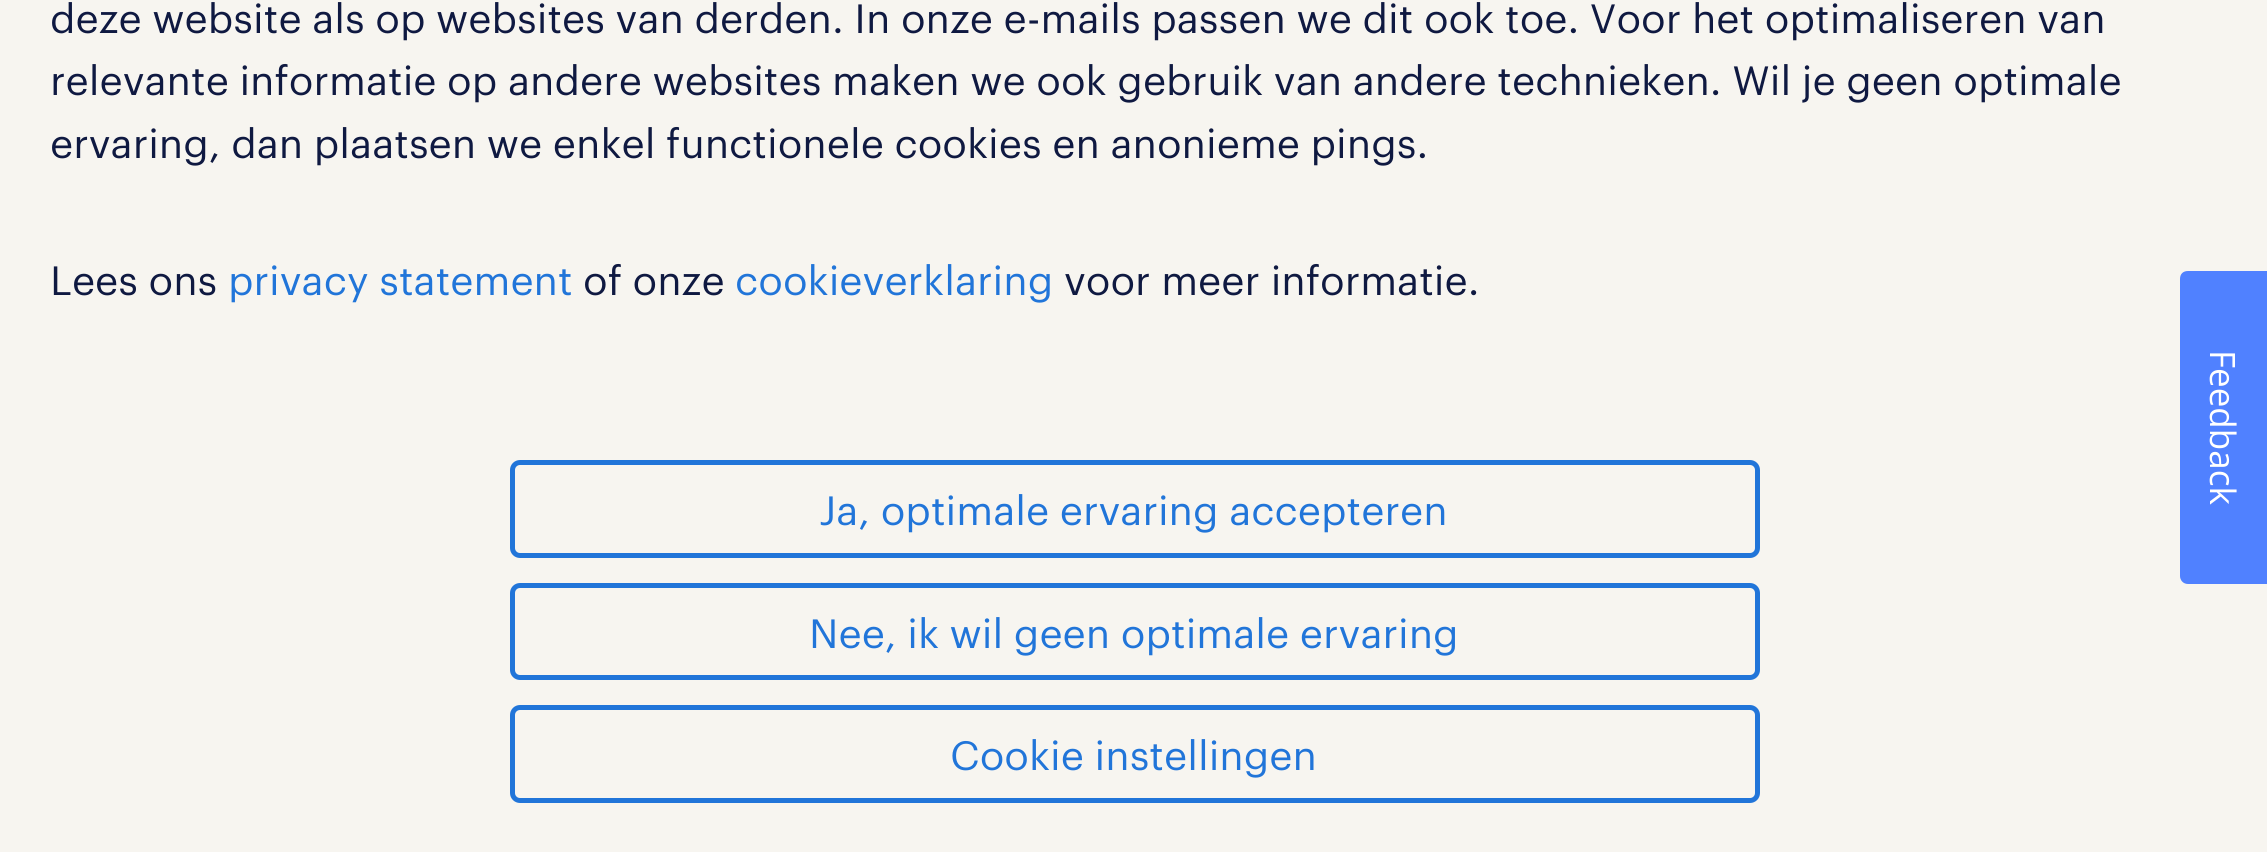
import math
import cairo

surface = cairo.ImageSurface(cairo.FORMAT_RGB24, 2267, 852)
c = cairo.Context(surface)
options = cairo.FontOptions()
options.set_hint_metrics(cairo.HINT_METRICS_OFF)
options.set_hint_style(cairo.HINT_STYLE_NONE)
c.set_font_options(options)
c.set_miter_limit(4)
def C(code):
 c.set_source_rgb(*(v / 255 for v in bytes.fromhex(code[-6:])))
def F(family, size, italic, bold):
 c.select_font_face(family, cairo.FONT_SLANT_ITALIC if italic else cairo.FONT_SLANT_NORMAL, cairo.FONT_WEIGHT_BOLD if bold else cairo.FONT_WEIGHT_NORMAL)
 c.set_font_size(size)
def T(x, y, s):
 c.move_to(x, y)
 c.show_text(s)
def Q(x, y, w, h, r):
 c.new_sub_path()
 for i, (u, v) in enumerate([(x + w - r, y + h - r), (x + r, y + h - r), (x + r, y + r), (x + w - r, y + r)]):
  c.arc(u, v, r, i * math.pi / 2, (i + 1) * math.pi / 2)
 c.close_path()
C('f7f5f0')
c.paint()
F('Graphik',40,0,0)
C('0f1941')
T(50,33,'deze website als op websites van derden. In onze e-mails passen we dit ook toe. Voor het optimaliseren van')
T(50,95,'relevante informatie op andere websites maken we ook gebruik van andere technieken. Wil je geen optimale')
T(50,158,'ervaring, dan plaatsen we enkel functionele cookies en anonieme pings.')
T(50,295,'Lees ons')
C('2175d9')
T(228,295,'privacy statement')
C('0f1941')
T(583,295,'of onze')
C('2175d9')
T(735,295,'cookieverklaring')
C('0f1941')
T(1064,295,'voor meer informatie.')
Q(512.5,462.5,1245,93,7.5)
C('2175d9')
c.set_line_width(5)
c.stroke()
T(819,525,'Ja, optimale ervaring accepteren')
Q(512.5,585.5,1245,92,7.5)
c.stroke()
T(809,648,'Nee, ik wil geen optimale ervaring')
Q(512.5,707.5,1245,93,7.5)
c.stroke()
T(950,770,'Cookie instellingen')
C('5081ff')
c.new_path()
c.move_to(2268,271)
c.line_to(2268,584)
c.line_to(2188,584)
c.curve_to(2183,584,2180,580,2180,576)
c.line_to(2180,279)
c.curve_to(2180,274,2183,271,2188,271)
c.close_path()
c.fill()
F('Open Sans',35,0,0)
C('ffffff')
c.save()
c.translate(2210,350)
c.rotate(90 * math.pi / 180)
T(0,0,'Feedback')
c.restore()
surface.write_to_png('o.png')
